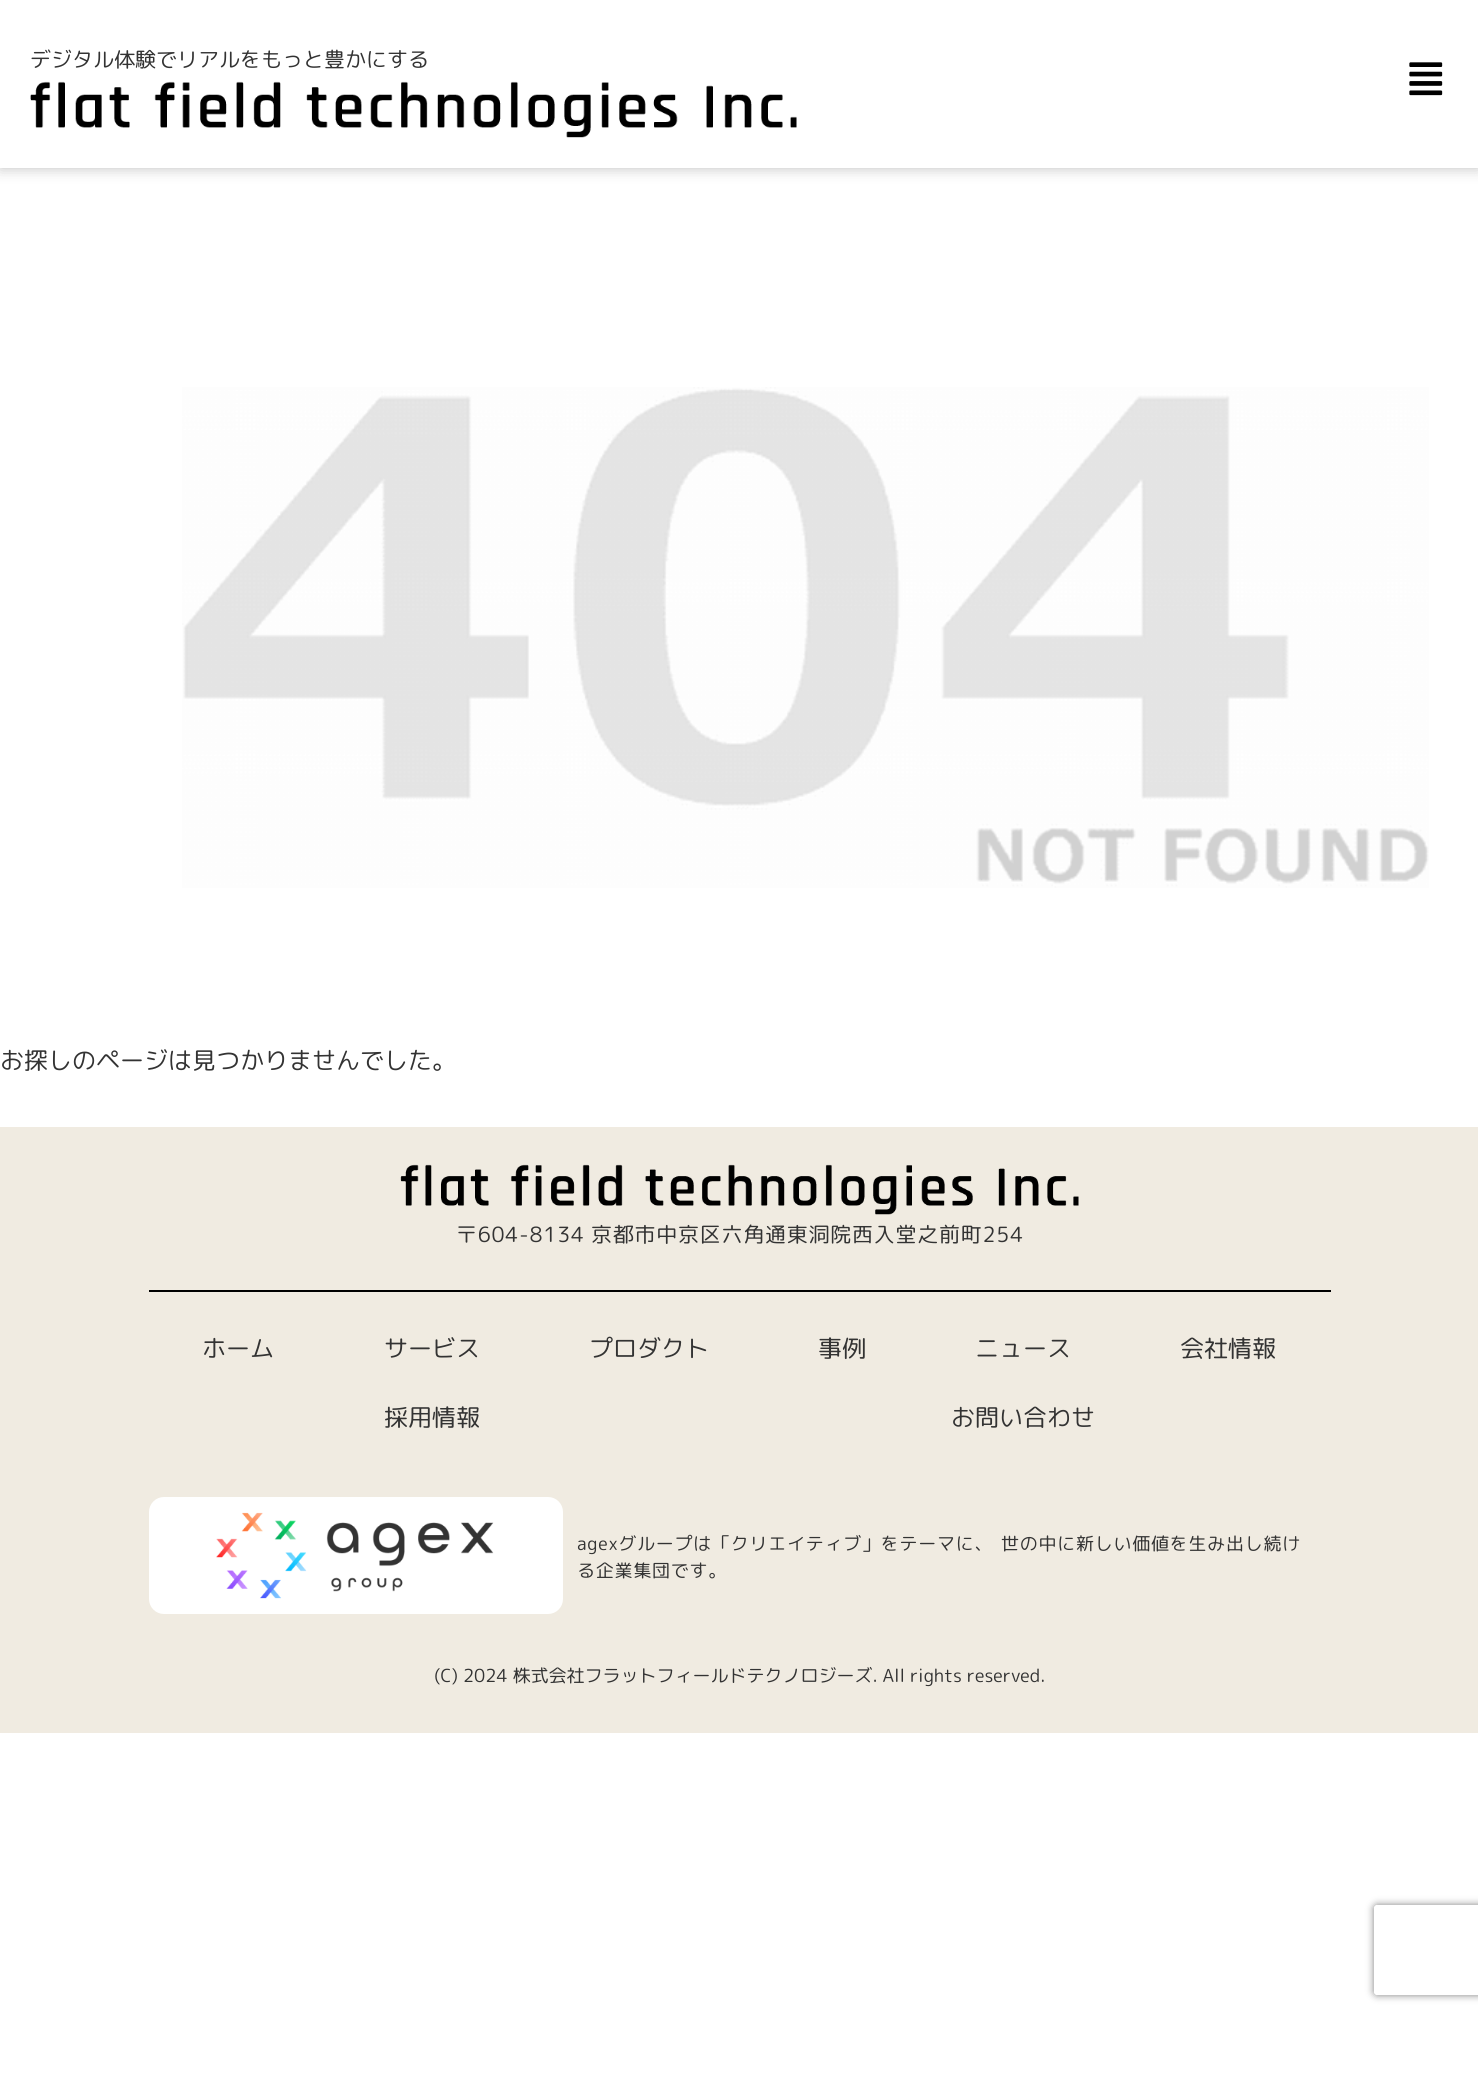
import math
import cairo

surface = cairo.ImageSurface(cairo.FORMAT_RGB24, 1478, 2085)
c = cairo.Context(surface)
options = cairo.FontOptions()
options.set_hint_metrics(cairo.HINT_METRICS_OFF)
options.set_hint_style(cairo.HINT_STYLE_NONE)
c.set_font_options(options)
c.set_miter_limit(4)
def C(code):
 c.set_source_rgb(*(v / 255 for v in bytes.fromhex(code[-6:])))
def F(family, size, italic, bold):
 c.select_font_face(family, cairo.FONT_SLANT_ITALIC if italic else cairo.FONT_SLANT_NORMAL, cairo.FONT_WEIGHT_BOLD if bold else cairo.FONT_WEIGHT_NORMAL)
 c.set_font_size(size)
def T(x, y, s):
 c.move_to(x, y)
 c.show_text(s)
def L(x, y, s, letter, word):
 c.move_to(x, y)
 for ch in s:
  c.show_text(ch)
  c.rel_move_to(letter + word * (ch == ' '), 0)
def R(x, y, w, h):
 c.rectangle(x, y, w, h)
 c.fill()
def Q(x, y, w, h, r):
 c.new_sub_path()
 for i, (u, v) in enumerate([(x + w - r, y + h - r), (x + r, y + h - r), (x + r, y + r), (x + w - r, y + r)]):
  c.arc(u, v, r, i * math.pi / 2, (i + 1) * math.pi / 2)
 c.close_path()
def S(x, y, w, h, r, blur, alpha):
 c.push_group_with_content(cairo.CONTENT_ALPHA)
 c.set_operator(cairo.OPERATOR_SOURCE)
 for i in range(15, -16, -2):
  e = blur * i / 6
  if min(w, h) + 2 * e > 0:
   c.set_source_rgba(0, 0, 0, alpha * math.erfc((i - 1) / 8.5) / 2)
   Q(x - e, y - e, w + 2 * e, h + 2 * e, max(0, min(r + e + blur * .6, min(w, h) / 2 + e)))
   c.fill()
 c.mask(c.pop_group())
def I(path, x, y, w, h):
 c.save()
 c.set_source_surface(cairo.ImageSurface.create_from_png(path), x, y)
 c.rectangle(x, y, w, h)
 c.fill()
 c.restore()
C('ffffff')
c.paint()
C('000000')
S(0,0,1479,168,0,7.5,.25)
C('ffffff')
R(0,0,1478,168)
F('Rounded Mplus 1c',21,0,0)
C('333333')
T(30,67,'デジタル体験でリアルをもっと豊かにする')
I('1.png',30,81,767,57)
I('2.png',1409,62,34,34)
I('3.png',182,387,1247,501)
F('Rounded Mplus 1c',24,0,0)
T(0,1069,'お探しのページは見つかりませんでした。')
C('f0ebe1')
R(0,1127,1478,606)
I('4.png',400,1164,679,51)
F('Rounded Mplus 1c',21,0,0)
C('333333')
L(456,1242,'〒604-8134 京都市中京区六角通東洞院西入堂之前町254',.75,0)
C('000000')
R(149,1290,1182,2)
F('Rounded Mplus 1c',24,0,0)
C('333333')
T(202,1357,'ホーム')
T(384,1357,'サービス')
T(589,1357,'プロダクト')
T(818,1357,'事例')
T(975,1357,'ニュース')
T(1180,1357,'会社情報')
T(384,1426,'採用情報')
T(951,1426,'お問い合わせ')
C('ffffff')
Q(150,1498,412,115,14)
c.fill_preserve()
c.stroke()
I('5.png',216,1512,278,87)
F('Rounded Mplus 1c',18,0,0)
C('333333')
L(577,1550,'agexグループは「クリエイティブ」をテーマに、',.75,0)
L(1001,1550,'世の中に新しい価値を生み出し続け',.75,0)
L(577,1577,'る企業集団です。',.75,0)
T(434,1682,'(C) 2024 株式会社フラットフィールドテクノロジーズ. All rights reserved.')
c.save()
c.set_fill_rule(cairo.FILL_RULE_EVEN_ODD)
c.new_path()
c.move_to(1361,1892)
c.line_to(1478,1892)
c.line_to(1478,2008)
c.line_to(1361,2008)
c.close_path()
c.move_to(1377,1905)
c.line_to(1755,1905)
c.curve_to(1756.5,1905,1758,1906.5,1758,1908)
c.line_to(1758,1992)
c.curve_to(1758,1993.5,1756.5,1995,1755,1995)
c.line_to(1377,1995)
c.curve_to(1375.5,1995,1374,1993.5,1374,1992)
c.line_to(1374,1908)
c.curve_to(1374,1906.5,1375.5,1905,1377,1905)
c.close_path()
c.clip()
C('808080')
S(1374,1905,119,90,3,4,1)
c.restore()
surface.write_to_png('o.png')
